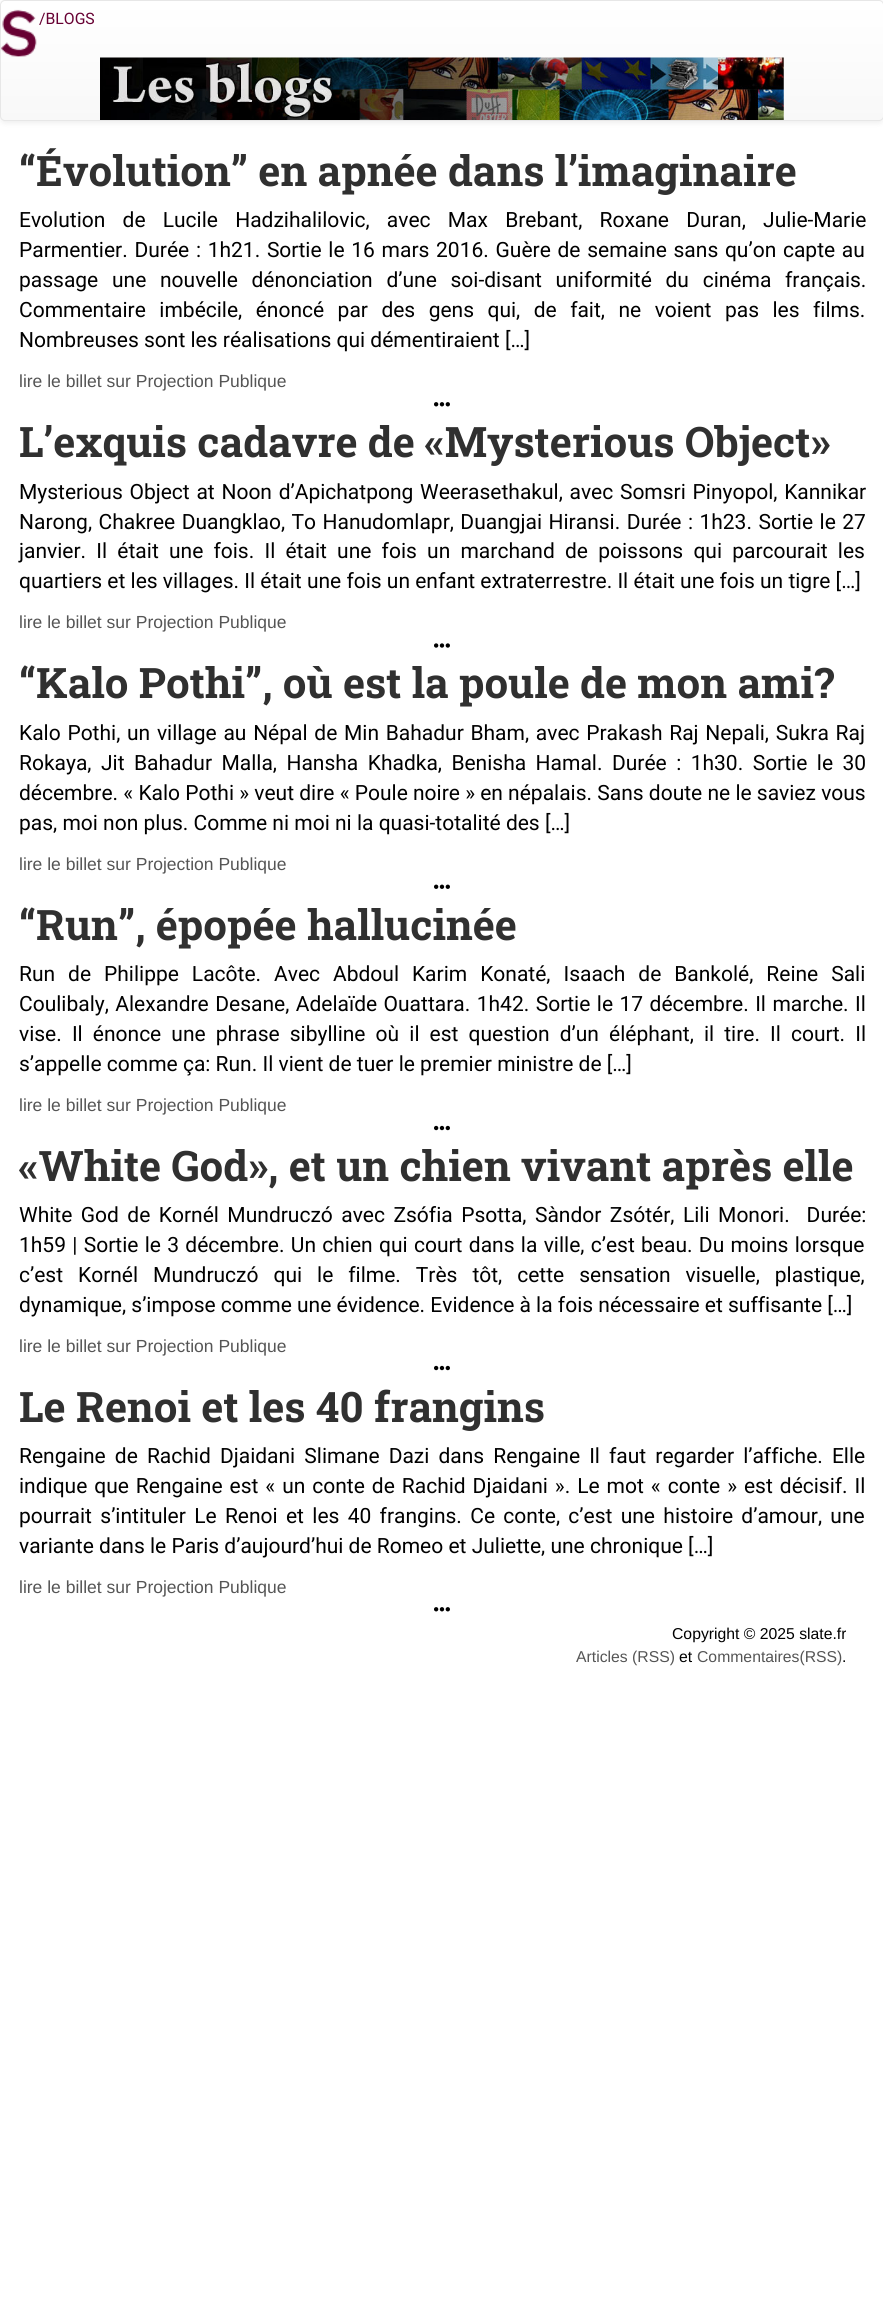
import math
import cairo

surface = cairo.ImageSurface(cairo.FORMAT_RGB24, 883, 2312)
c = cairo.Context(surface)
options = cairo.FontOptions()
options.set_hint_metrics(cairo.HINT_METRICS_OFF)
options.set_hint_style(cairo.HINT_STYLE_NONE)
c.set_font_options(options)
c.set_miter_limit(4)
def C(code):
 c.set_source_rgb(*(v / 255 for v in bytes.fromhex(code[-6:])))
def F(family, size, italic, bold):
 c.select_font_face(family, cairo.FONT_SLANT_ITALIC if italic else cairo.FONT_SLANT_NORMAL, cairo.FONT_WEIGHT_BOLD if bold else cairo.FONT_WEIGHT_NORMAL)
 c.set_font_size(size)
def T(x, y, s):
 c.move_to(x, y)
 c.show_text(s)
def L(x, y, s, letter, word):
 c.move_to(x, y)
 for ch in s:
  c.show_text(ch)
  c.rel_move_to(letter + word * (ch == ' '), 0)
def R(x, y, w, h):
 c.rectangle(x, y, w, h)
 c.fill()
def Q(x, y, w, h, r):
 c.new_sub_path()
 for i, (u, v) in enumerate([(x + w - r, y + h - r), (x + r, y + h - r), (x + r, y + r), (x + w - r, y + r)]):
  c.arc(u, v, r, i * math.pi / 2, (i + 1) * math.pi / 2)
 c.close_path()
def S(x, y, w, h, r, blur, alpha):
 c.push_group_with_content(cairo.CONTENT_ALPHA)
 c.set_operator(cairo.OPERATOR_SOURCE)
 for i in range(15, -16, -2):
  e = blur * i / 6
  if min(w, h) + 2 * e > 0:
   c.set_source_rgba(0, 0, 0, alpha * math.erfc((i - 1) / 8.5) / 2)
   Q(x - e, y - e, w + 2 * e, h + 2 * e, max(0, min(r + e + blur * .6, min(w, h) / 2 + e)))
   c.fill()
 c.mask(c.pop_group())
def I(path, x, y, w, h):
 c.save()
 c.set_source_surface(cairo.ImageSurface.create_from_png(path), x, y)
 c.rectangle(x, y, w, h)
 c.fill()
 c.restore()
C('ffffff')
c.paint()
C('000000')
S(0,1,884,122,5,3,.07)
c.save()
Q(0,0,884,121,5)
c.clip()
gradient = cairo.LinearGradient(442,1.2,442,120)
gradient.add_color_stop_rgba(0,1,1,1,1)
gradient.add_color_stop_rgba(1,0.973,0.973,0.973,1)
c.set_source(gradient)
R(0,1,883,119)
c.restore()
Q(.5,.5,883,120,4.5)
C('e7e7e7')
c.set_line_width(1)
c.stroke()
I('1.png',1,9,36,48)
F('Roboto',15.75,0,0)
C('670133')
T(39,24,'/BLOGS')
I('2.png',100,57,684,63)
F('Roboto Slab',42,0,1)
C('303030')
T(19,186,'“Évolution” en apnée dans l’imaginaire')
F('Roboto',21,0,0)
C('000000')
L(19,227,'Evolution de Lucile Hadzihalilovic, avec Max Brebant, Roxane Duran, Julie-Marie',0,12)
L(19,257,'Parmentier. Durée : 1h21. Sortie le 16 mars 2016. Guère de semaine sans qu’on capte au',0,1.5)
L(19,287,'passage une nouvelle dénonciation d’une soi-disant uniformité du cinéma français.',0,8.5)
L(19,317,'Commentaire imbécile, énoncé par des gens qui, de fait, ne voient pas les films.',0,8.25)
T(19,347,'Nombreuses sont les réalisations qui démentiraient […]')
F('Liberation Sans',17.5,0,0)
C('555555')
T(19,387,'lire le billet sur Projection Publique')
I('3.png',434,402,16,5)
F('Roboto Slab',42,0,1)
C('303030')
T(19,457,'L’exquis cadavre de «Mysterious Object»')
F('Roboto',21,0,0)
C('000000')
L(19,499,'Mysterious Object at Noon d’Apichatpong Weerasethakul, avec Somsri Pinyopol, Kannikar',0,1.5)
L(19,529,'Narong, Chakree Duangklao, To Hanudomlapr, Duangjai Hiransi. Durée : 1h23. Sortie le 27',0,1.25)
L(19,558,'janvier. Il était une fois. Il était une fois un marchand de poissons qui parcourait les',0,5)
T(19,588,'quartiers et les villages. Il était une fois un enfant extraterrestre. Il était une fois un tigre […]')
F('Liberation Sans',17.5,0,0)
C('555555')
T(19,628,'lire le billet sur Projection Publique')
I('4.png',434,643,16,5)
F('Roboto Slab',42,0,1)
C('303030')
T(19,698,'“Kalo Pothi”, où est la poule de mon ami?')
F('Roboto',21,0,0)
C('000000')
L(19,740,'Kalo Pothi, un village au Népal de Min Bahadur Bham, avec Prakash Raj Nepali, Sukra Raj',0,1.5)
L(19,770,'Rokaya, Jit Bahadur Malla, Hansha Khadka, Benisha Hamal. Durée : 1h30. Sortie le 30',0,4.25)
T(19,800,'décembre. « Kalo Pothi » veut dire « Poule noire » en népalais. Sans doute ne le saviez vous')
T(19,830,'pas, moi non plus. Comme ni moi ni la quasi-totalité des […]')
F('Liberation Sans',17.5,0,0)
C('555555')
T(19,870,'lire le billet sur Projection Publique')
I('5.png',434,884,16,5)
F('Roboto Slab',42,0,1)
C('303030')
T(19,940,'“Run”, épopée hallucinée')
F('Roboto',21,0,0)
C('000000')
L(19,981,'Run de Philippe Lacôte. Avec Abdoul Karim Konaté, Isaach de Bankolé, Reine Sali',0,7.75)
L(19,1011,'Coulibaly, Alexandre Desane, Adelaïde Ouattara. 1h42. Sortie le 17 décembre. Il marche. Il',0,1.25)
L(19,1041,'vise. Il énonce une phrase sibylline où il est question d’un éléphant, il tire. Il court. Il',0,4.9)
T(19,1071,'s’appelle comme ça: Run. Il vient de tuer le premier ministre de […]')
F('Liberation Sans',17.5,0,0)
C('555555')
T(19,1111,'lire le billet sur Projection Publique')
I('6.png',434,1125,16,6)
F('Roboto Slab',42,0,1)
C('303030')
T(19,1181,'«White God», et un chien vivant après elle')
F('Roboto',21,0,0)
C('000000')
L(19,1222,'White God de Kornél Mundruczó avec Zsófia Psotta, Sàndor Zsótér, Lili Monori.  Durée:',0,3.25)
L(19,1252,'1h59 | Sortie le 3 décembre. Un chien qui court dans la ville, c’est beau. Du moins lorsque',0,1.1)
L(19,1282,'c’est Kornél Mundruczó qui le filme. Très tôt, cette sensation visuelle, plastique,',0,9.75)
T(19,1312,'dynamique, s’impose comme une évidence. Evidence à la fois nécessaire et suffisante […]')
F('Liberation Sans',17.5,0,0)
C('555555')
T(19,1352,'lire le billet sur Projection Publique')
I('6.png',434,1365,16,6)
F('Roboto Slab',42,0,1)
C('303030')
T(19,1422,'Le Renoi et les 40 frangins')
F('Roboto',21,0,0)
C('000000')
L(19,1463,'Rengaine de Rachid Djaidani Slimane Dazi dans Rengaine Il faut regarder l’affiche. Elle',0,3.9)
L(19,1493,'indique que Rengaine est « un conte de Rachid Djaidani ». Le mot « conte » est décisif. Il',0,1.75)
L(19,1523,'pourrait s’intituler Le Renoi et les 40 frangins. Ce conte, c’est une histoire d’amour, une',0,3.1)
T(19,1553,'variante dans le Paris d’aujourd’hui de Romeo et Juliette, une chronique […]')
F('Liberation Sans',17.5,0,0)
C('555555')
T(19,1593,'lire le billet sur Projection Publique')
I('3.png',434,1607,16,5)
F('Liberation Sans',15.75,0,0)
C('000000')
T(672,1639,'Copyright © 2025 slate.fr')
C('555555')
T(576,1662,'Articles (RSS)')
C('000000')
T(679,1662,'et')
C('555555')
T(697,1662,'Commentaires(RSS)')
C('000000')
T(842,1662,'.')
surface.write_to_png('o.png')
